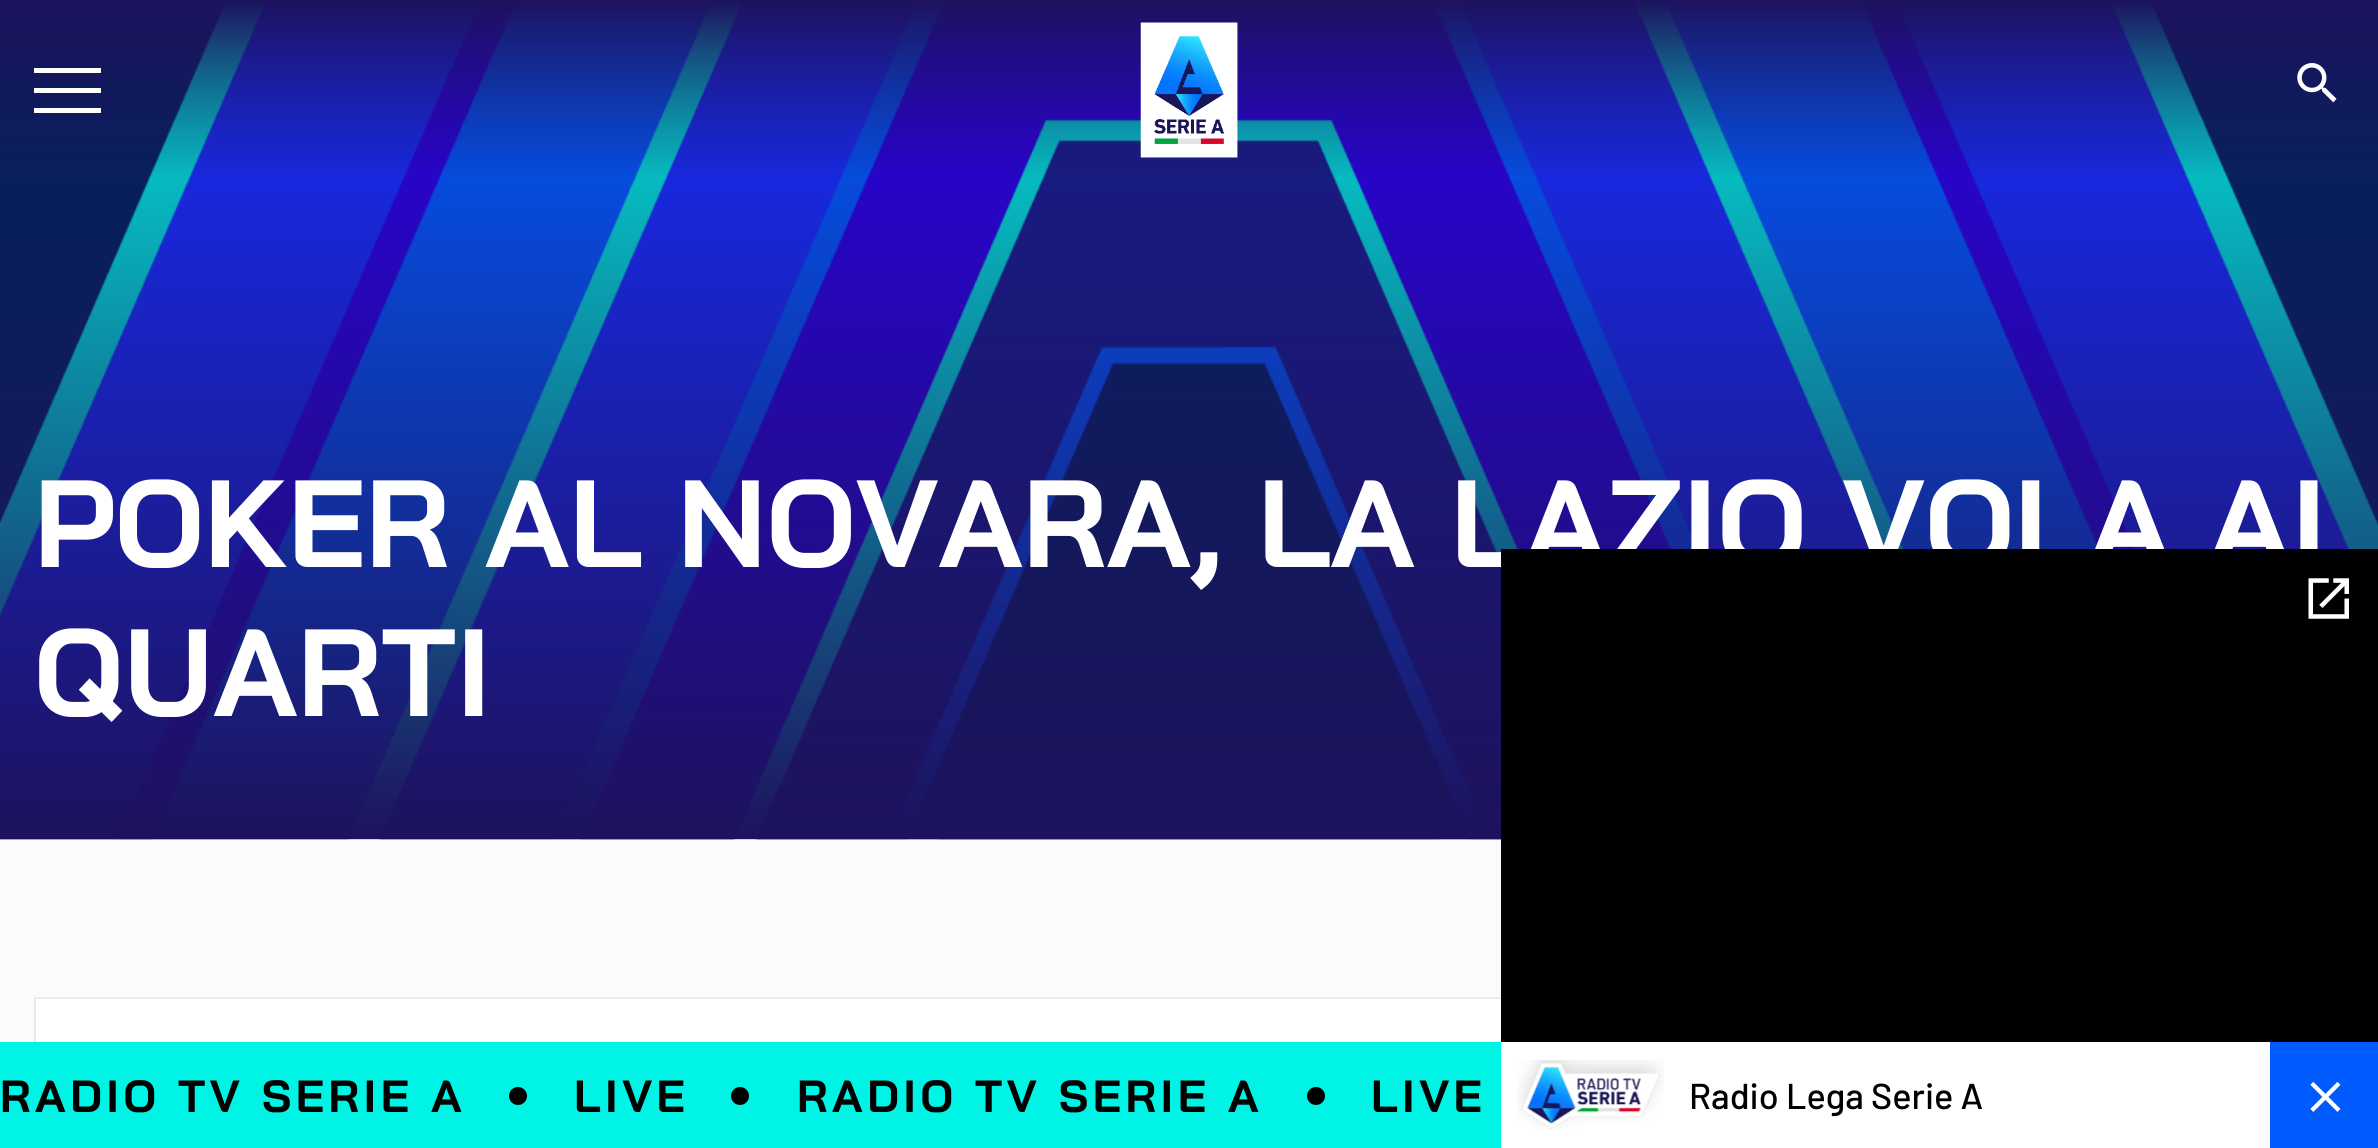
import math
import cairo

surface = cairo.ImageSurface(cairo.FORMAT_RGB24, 2378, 1148)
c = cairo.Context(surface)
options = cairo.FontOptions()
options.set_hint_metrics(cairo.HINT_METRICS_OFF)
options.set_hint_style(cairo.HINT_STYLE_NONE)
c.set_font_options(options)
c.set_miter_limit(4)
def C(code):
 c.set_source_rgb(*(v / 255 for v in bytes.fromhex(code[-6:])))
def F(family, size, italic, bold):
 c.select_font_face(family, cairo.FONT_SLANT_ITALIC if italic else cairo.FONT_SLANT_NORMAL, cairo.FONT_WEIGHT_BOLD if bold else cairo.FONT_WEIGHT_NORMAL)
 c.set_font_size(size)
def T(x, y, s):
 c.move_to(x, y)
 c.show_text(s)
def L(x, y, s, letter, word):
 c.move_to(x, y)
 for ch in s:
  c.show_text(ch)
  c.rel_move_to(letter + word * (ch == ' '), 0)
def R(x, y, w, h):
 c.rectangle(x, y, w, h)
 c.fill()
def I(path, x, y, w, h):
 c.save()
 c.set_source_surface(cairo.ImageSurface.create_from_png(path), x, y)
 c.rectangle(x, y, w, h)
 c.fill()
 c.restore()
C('fbfbfd')
c.paint()
I('3.png',0,1,2378,839)
gradient = cairo.LinearGradient(1189,839,1189,0)
gradient.add_color_stop_rgba(0,0.114,0.071,0.365,1)
gradient.add_color_stop_rgba(1,0.114,0.071,0.365,0)
c.set_source(gradient)
R(0,18,2378,821)
gradient = cairo.LinearGradient(1189,0,1189,180)
gradient.add_color_stop_rgba(0,0.114,0.071,0.365,1)
gradient.add_color_stop_rgba(1,0.114,0.071,0.365,0)
c.set_source(gradient)
R(0,0,2378,176)
C('ffffff')
R(34,68,67,5)
R(34,88,67,5)
R(34,108,67,5)
I('1.png',1140,22,98,136)
I('2.png',2297,63,40,40)
F('Bai Jamjuree',123.75,0,1)
T(34,567,'POKER AL NOVARA, LA LAZIO VOLA AI')
T(34,716,'QUARTI')
R(36,999,1465,43)
c.rectangle(35,998,1717,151)
C('e9eaeb')
c.stroke()
C('00f4e6')
R(0,1042,1501,106)
F('Bai Jamjuree',45,0,1)
C('000000')
L(0,1112,'RADIO TV SERIE A',4.5,0)
c.new_path()
c.arc(518,1096,9,0,2 * math.pi)
c.fill()
L(574,1112,'LIVE',4.5,0)
c.new_path()
c.arc(740,1096,9,0,2 * math.pi)
c.fill()
L(797,1112,'RADIO TV SERIE A',4.5,0)
c.new_path()
c.arc(1316,1096,9,0,2 * math.pi)
c.fill()
L(1371,1112,'LIVE',4.5,0)
R(1501,549,877,493)
I('4.png',2308,578,41,41)
C('ffffff')
R(1501,1042,769,106)
I('5.png',1517,1060,147,70)
F('Barlow Medium',36,0,0)
C('000000')
T(1689,1109,'Radio Lega Serie A')
C('005bff')
R(2270,1042,108,106)
I('6.png',2310,1081,31,31)
surface.write_to_png('o.png')
